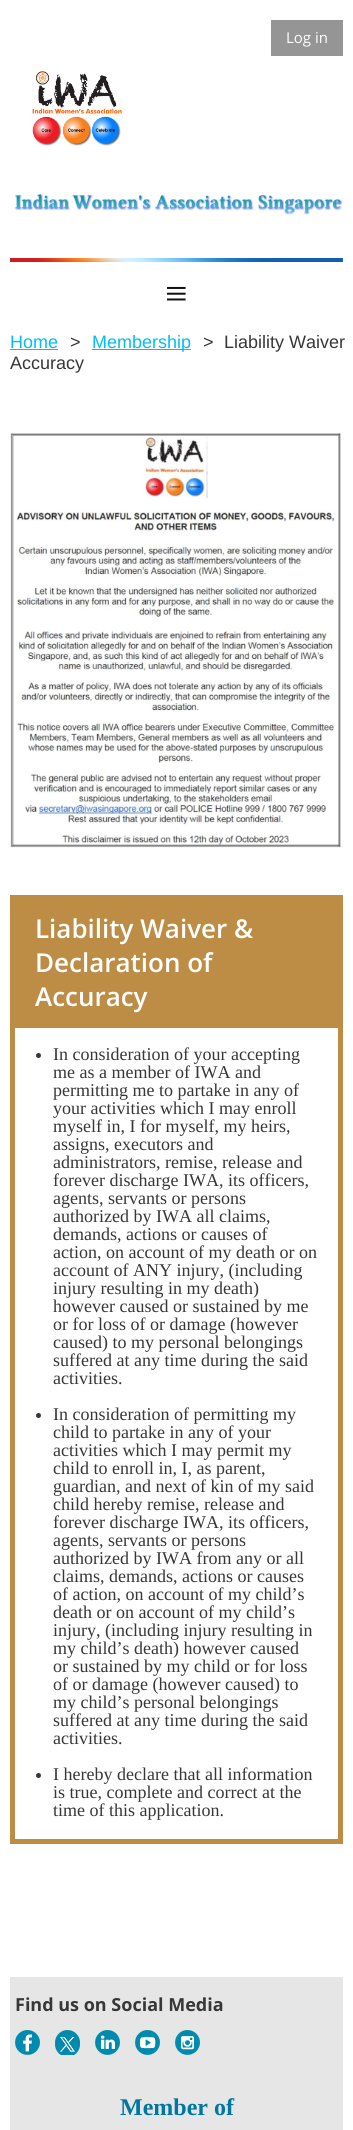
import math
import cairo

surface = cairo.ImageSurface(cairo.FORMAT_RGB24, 353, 2130)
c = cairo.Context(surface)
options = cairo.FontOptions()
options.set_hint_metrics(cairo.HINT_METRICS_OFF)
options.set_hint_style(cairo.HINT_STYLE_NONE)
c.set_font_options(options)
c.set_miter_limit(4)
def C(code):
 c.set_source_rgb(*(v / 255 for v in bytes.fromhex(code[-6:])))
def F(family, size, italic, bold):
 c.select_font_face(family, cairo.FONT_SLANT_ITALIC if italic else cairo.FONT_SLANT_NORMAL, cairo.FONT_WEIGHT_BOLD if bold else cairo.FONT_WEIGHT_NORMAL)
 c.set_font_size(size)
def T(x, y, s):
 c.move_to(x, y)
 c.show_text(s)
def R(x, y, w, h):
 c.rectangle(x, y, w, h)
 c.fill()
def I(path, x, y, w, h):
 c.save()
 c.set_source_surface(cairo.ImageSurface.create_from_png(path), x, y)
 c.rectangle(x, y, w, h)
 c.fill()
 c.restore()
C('ffffff')
c.paint()
C('959595')
R(271,20,72,36)
F('Open Sans',15,0,0)
C('ffffff')
T(286,43,'Log in')
I('1.png',32,71,90,75)
I('2.png',15,194,328,21)
I('3.png',10,258,333,4)
F('Liberation Serif',40,0,0)
C('111111')
T(165,307,'≡')
F('Liberation Sans',18,0,0)
C('373737')
T(203,348,'>')
T(224,348,'Liability Waiver')
T(10,369,'Accuracy')
C('00bff3')
T(10,348,'Home')
R(10,349,48,1)
C('373737')
T(70,348,'>')
C('00bff3')
R(92,349,99,1)
T(92,348,'Membership')
I('4.png',10,433,333,415)
c.rectangle(12.5,897.5,328,944)
C('bd8d46')
c.set_line_width(5)
c.stroke()
R(15,900,323,128)
F('Open Sans SemiBold',26,0,0)
C('ffffff')
T(35,938,'Liability Waiver &')
T(35,972,'Declaration of')
T(35,1006,'Accuracy')
C('373737')
c.new_path()
c.arc(38.5,1055.5,2.5,0,2 * math.pi)
c.fill()
F('Liberation Serif',18,0,0)
T(53,1060,'In consideration of your accepting')
T(53,1078,'me as a member of IWA and')
T(53,1096,'permitting me to partake in any of')
T(53,1114,'your activities which I may enroll')
T(53,1132,'myself in, I for myself, my heirs,')
T(53,1150,'assigns, executors and')
T(53,1168,'administrators, remise, release and')
T(53,1186,'forever discharge IWA, its officers,')
T(53,1204,'agents, servants or persons')
T(53,1222,'authorized by IWA all claims,')
T(53,1240,'demands, actions or causes of')
T(53,1258,'action, on account of my death or on')
T(53,1276,'account of ANY injury, (including')
T(53,1294,'injury resulting in my death)')
T(53,1312,'however caused or sustained by me')
T(53,1330,'or for loss of or damage (however')
T(53,1348,'caused) to my personal belongings')
T(53,1366,'suffered at any time during the said')
T(53,1384,'activities.')
c.new_path()
c.arc(38.5,1415.5,2.5,0,2 * math.pi)
c.fill()
T(53,1420,'In consideration of permitting my')
T(53,1438,'child to partake in any of your')
T(53,1456,'activities which I may permit my')
T(53,1474,'child to enroll in, I, as parent,')
T(53,1492,'guardian, and next of kin of my said')
T(53,1510,'child hereby remise, release and')
T(53,1528,'forever discharge IWA, its officers,')
T(53,1546,'agents, servants or persons')
T(53,1564,'authorized by IWA from any or all')
T(53,1582,'claims, demands, actions or causes')
T(53,1600,'of action, on account of my child’s')
T(53,1618,'death or on account of my child’s')
T(53,1636,'injury, (including injury resulting in')
T(53,1654,'my child’s death) however caused')
T(53,1672,'or sustained by my child or for loss')
T(53,1690,'of or damage (however caused) to')
T(53,1708,'my child’s personal belongings')
T(53,1726,'suffered at any time during the said')
T(53,1744,'activities.')
c.new_path()
c.arc(38.5,1775.5,2.5,0,2 * math.pi)
c.fill()
T(53,1780,'I hereby declare that all information')
T(53,1798,'is true, complete and correct at the')
T(53,1816,'time of this application.')
C('e6e6e6')
R(10,1977,333,153)
F('Open Sans',18,0,1)
C('373737')
T(15,2011,'Find us on Social Media')
I('5.png',15,2030,25,25)
I('6.png',55,2030,25,25)
I('7.png',95,2030,25,25)
I('8.png',135,2030,25,25)
I('9.png',175,2030,25,25)
F('Liberation Serif',24,0,1)
C('0076a3')
T(120,2115,'Member of')
surface.write_to_png('o.png')
